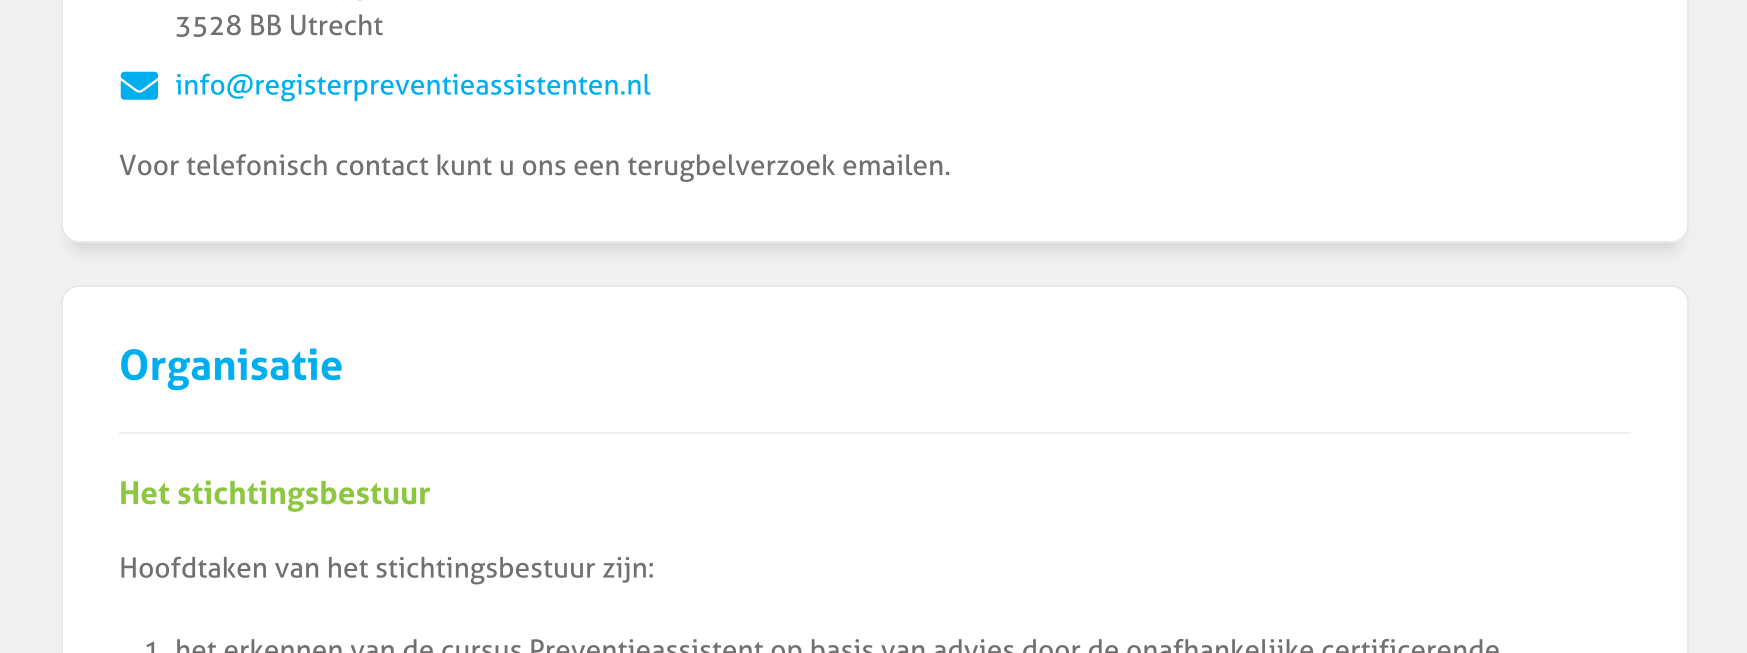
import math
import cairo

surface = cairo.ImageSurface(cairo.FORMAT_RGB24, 1747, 653)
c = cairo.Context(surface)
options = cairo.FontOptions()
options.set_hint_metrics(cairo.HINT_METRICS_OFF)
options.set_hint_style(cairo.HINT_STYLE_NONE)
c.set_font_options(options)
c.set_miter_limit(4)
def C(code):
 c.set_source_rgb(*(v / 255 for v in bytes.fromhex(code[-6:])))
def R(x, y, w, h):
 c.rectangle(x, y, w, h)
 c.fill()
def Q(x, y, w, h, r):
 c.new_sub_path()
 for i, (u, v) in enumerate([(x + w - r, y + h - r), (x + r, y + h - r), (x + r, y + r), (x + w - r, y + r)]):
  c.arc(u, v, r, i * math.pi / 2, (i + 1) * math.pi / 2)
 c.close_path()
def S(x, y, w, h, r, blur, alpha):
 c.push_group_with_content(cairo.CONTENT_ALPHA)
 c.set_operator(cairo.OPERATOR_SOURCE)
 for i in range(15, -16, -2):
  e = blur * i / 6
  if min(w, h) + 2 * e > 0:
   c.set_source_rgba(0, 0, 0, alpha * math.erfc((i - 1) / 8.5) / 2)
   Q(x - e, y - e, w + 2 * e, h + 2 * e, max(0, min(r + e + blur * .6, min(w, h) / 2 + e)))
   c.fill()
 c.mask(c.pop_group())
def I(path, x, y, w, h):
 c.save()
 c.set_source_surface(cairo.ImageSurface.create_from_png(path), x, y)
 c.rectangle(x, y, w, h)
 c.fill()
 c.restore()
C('f0f0f0')
c.paint()
C('00030f')
S(75,-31,1600,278,4,9,.15)
C('ffffff')
Q(62,-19,1626,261,17)
c.fill_preserve()
C('e8e8e8')
c.stroke()
I('1.png',343,0,19,1)
I('2.png',176,14,207,23)
I('3.png',120,71,39,29)
I('4.png',176,73,475,29)
I('5.png',119,154,831,28)
C('ffffff')
Q(62,286,1626,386,17)
c.fill_preserve()
C('e8e8e8')
c.stroke()
I('6.png',121,348,221,43)
C('f0f0f0')
R(119,432,1512,2)
I('7.png',121,480,310,32)
I('8.png',121,556,532,29)
I('9.png',146,641,9,12)
I('10.png',177,638,1322,15)
surface.write_to_png('o.png')
